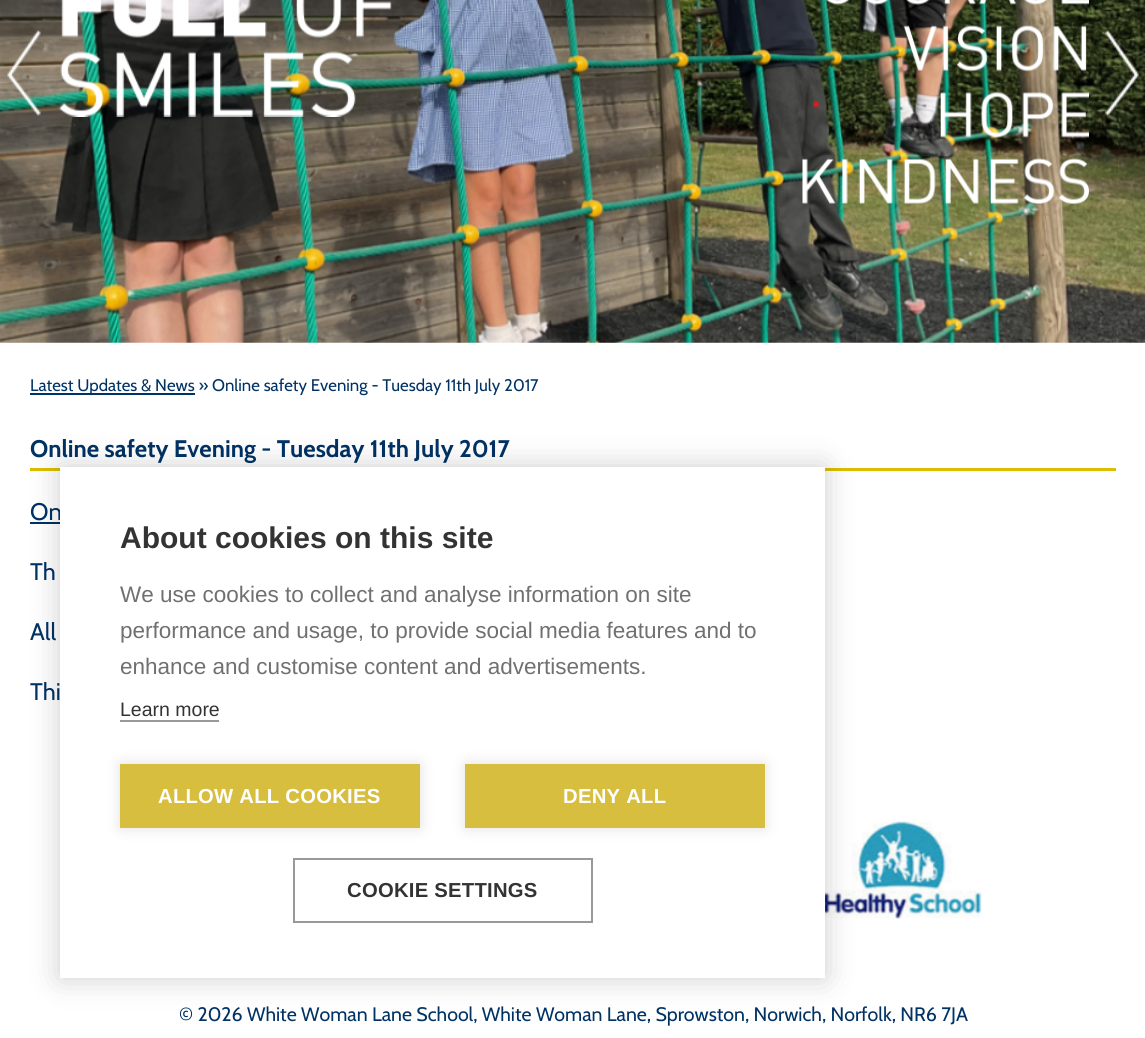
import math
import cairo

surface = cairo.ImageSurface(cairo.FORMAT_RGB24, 1145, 1038)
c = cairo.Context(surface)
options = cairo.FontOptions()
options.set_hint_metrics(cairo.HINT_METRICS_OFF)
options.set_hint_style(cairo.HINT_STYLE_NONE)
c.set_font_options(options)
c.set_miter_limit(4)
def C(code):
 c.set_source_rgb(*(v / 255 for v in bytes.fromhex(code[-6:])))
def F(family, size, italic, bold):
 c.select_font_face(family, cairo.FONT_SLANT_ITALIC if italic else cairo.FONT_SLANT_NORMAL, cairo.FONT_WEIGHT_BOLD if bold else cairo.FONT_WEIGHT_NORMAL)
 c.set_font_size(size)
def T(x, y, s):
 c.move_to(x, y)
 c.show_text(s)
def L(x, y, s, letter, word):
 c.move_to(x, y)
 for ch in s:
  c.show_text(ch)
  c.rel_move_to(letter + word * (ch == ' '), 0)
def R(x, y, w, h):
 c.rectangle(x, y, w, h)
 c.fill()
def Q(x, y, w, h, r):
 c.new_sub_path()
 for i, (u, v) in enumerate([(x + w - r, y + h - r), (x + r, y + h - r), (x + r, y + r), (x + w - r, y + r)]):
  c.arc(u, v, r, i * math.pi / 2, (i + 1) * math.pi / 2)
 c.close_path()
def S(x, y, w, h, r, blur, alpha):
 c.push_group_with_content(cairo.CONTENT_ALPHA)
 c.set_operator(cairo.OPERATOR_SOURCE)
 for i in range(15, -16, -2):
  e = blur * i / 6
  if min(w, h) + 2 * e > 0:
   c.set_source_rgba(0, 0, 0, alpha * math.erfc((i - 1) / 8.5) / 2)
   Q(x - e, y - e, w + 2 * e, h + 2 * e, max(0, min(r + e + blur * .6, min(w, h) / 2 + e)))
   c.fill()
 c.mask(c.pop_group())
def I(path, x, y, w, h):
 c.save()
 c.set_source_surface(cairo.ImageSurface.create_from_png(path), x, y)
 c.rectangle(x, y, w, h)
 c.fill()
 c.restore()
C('ffffff')
c.paint()
I('1.png',0,0,1145,343)
I('2.png',59,0,333,117)
I('3.png',802,0,287,204)
I('4.png',7,30,34,86)
I('5.png',1105,30,34,86)
C('003264')
R(30,393,165,2)
F('Cabin',16.8,0,0)
T(30,391,'Latest Updates & News » Online safety Evening - Tuesday 11th July 2017')
C('dcbe00')
R(30,468,1086,3)
F('Cabin',24,0,1)
C('003264')
T(30,457,'Online safety Evening - Tuesday 11th July 2017')
F('Cabin',24,0,0)
T(30,520,'On')
R(30,522,30,2)
T(30,580,'Th')
T(30,640,'All')
T(30,700,'Thi')
I('6.png',825,803,157,126)
F('Cabin',19.5,0,0)
T(179,1021,'© 2026 White Woman Lane School, White Woman Lane, Sprowston, Norwich, Norfolk, NR6 7JA')
C('000000')
S(60,467,765,511,0,15,.2)
C('ffffff')
R(60,467,765,511)
F('Liberation Sans',30,0,1)
C('333333')
T(120,548,'About cookies on this site')
F('Liberation Sans',22.5,0,0)
C('707070')
T(120,602,'We use cookies to collect and analyse information on site')
T(120,638,'performance and usage, to provide social media features and to')
T(120,674,'enhance and customise content and advertisements.')
F('Liberation Sans',19.5,0,0)
C('333333')
T(120,716,'Learn more')
C('999999')
R(120,720,99,2)
C('000000')
S(120,764,300,64,0,7.5,.12)
C('d7be3e')
R(120,764,300,64)
F('Liberation Sans',20.25,0,1)
C('ffffff')
L(158,803,'ALLOW ALL COOKIES',.25,0)
C('000000')
S(465,764,300,64,0,7.5,.12)
C('d7be3e')
R(465,764,300,64)
C('ffffff')
L(563,803,'DENY ALL',.25,0)
c.rectangle(294,859,298,63)
C('999999')
c.stroke()
C('333333')
L(347,897,'COOKIE SETTINGS',.25,0)
surface.write_to_png('o.png')
